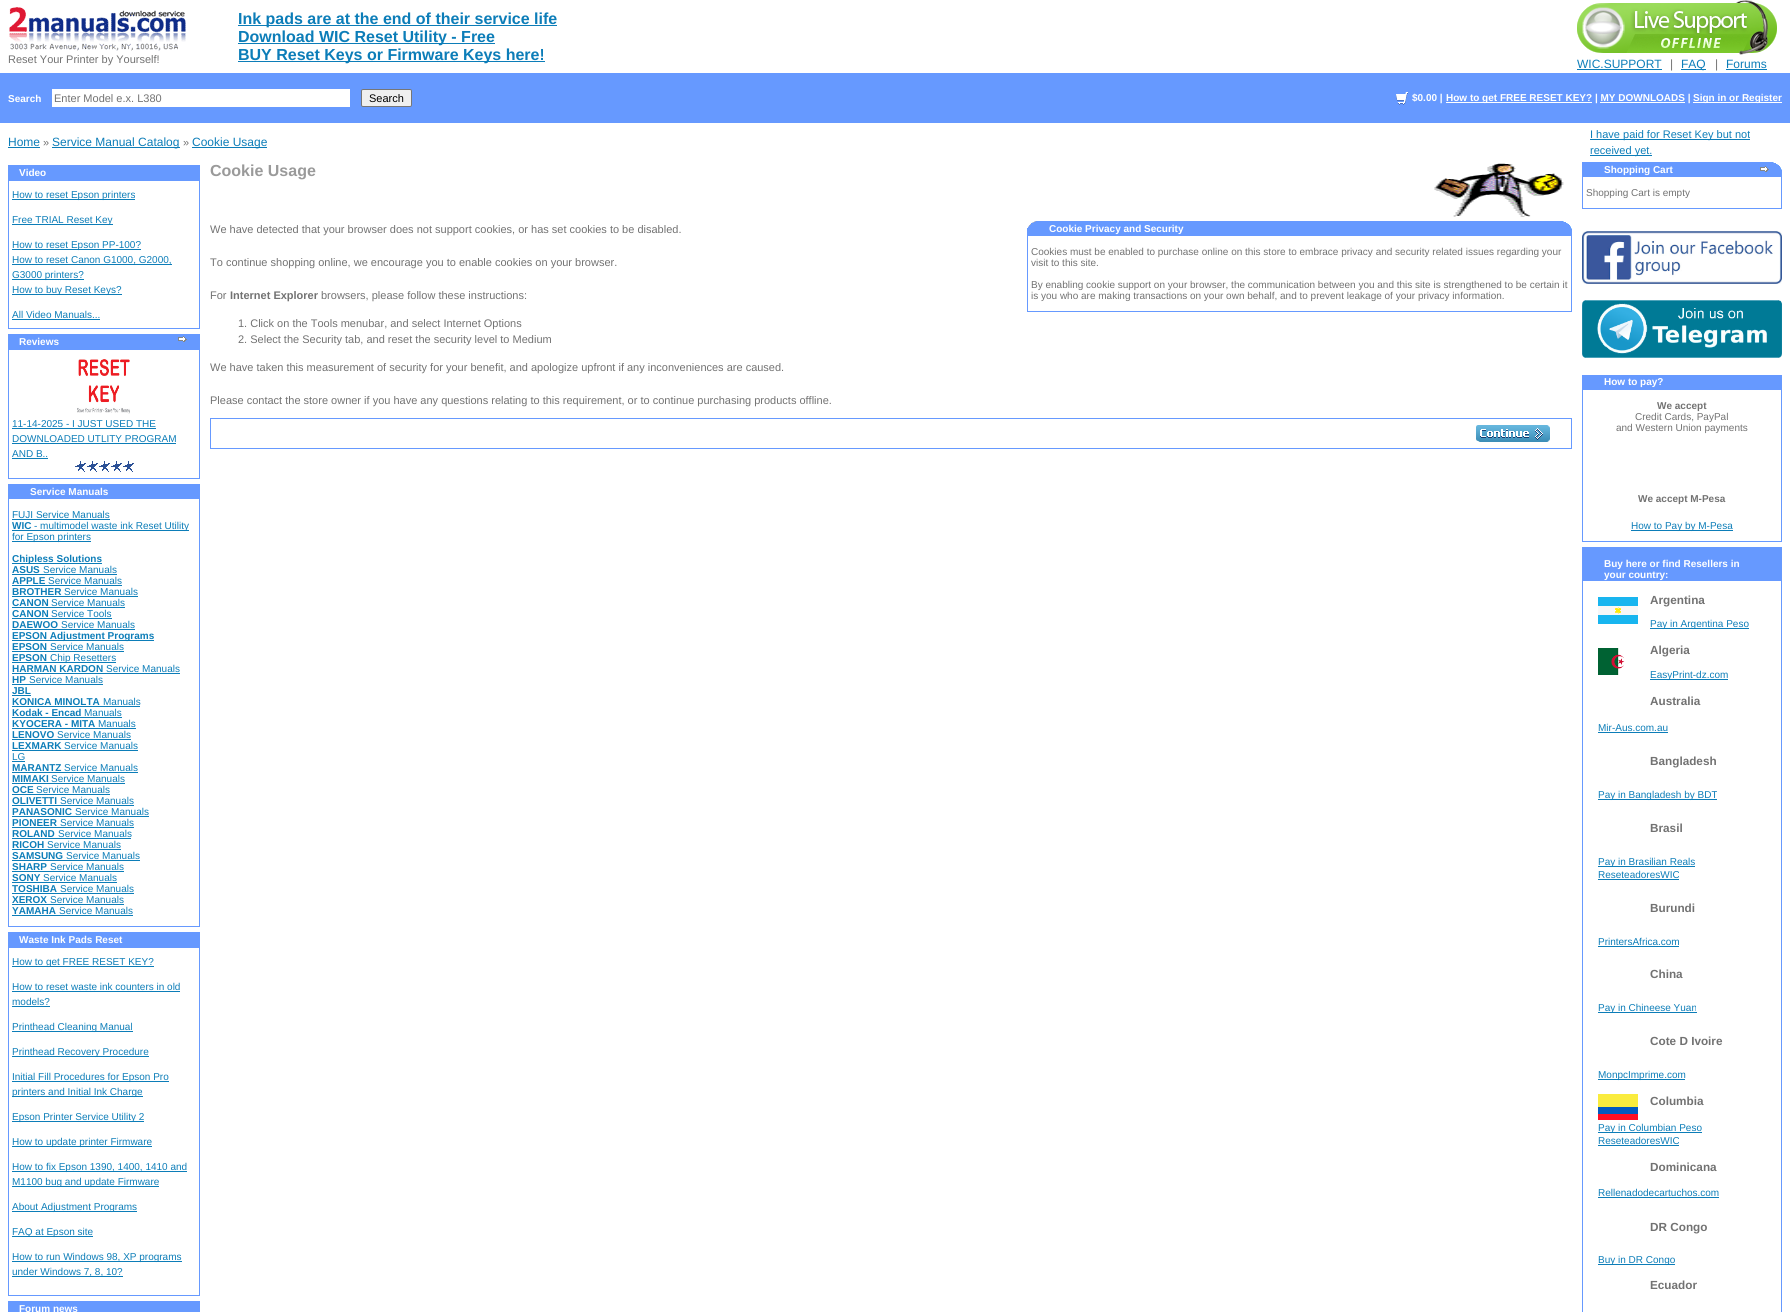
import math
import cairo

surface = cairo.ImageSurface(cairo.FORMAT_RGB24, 1790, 1312)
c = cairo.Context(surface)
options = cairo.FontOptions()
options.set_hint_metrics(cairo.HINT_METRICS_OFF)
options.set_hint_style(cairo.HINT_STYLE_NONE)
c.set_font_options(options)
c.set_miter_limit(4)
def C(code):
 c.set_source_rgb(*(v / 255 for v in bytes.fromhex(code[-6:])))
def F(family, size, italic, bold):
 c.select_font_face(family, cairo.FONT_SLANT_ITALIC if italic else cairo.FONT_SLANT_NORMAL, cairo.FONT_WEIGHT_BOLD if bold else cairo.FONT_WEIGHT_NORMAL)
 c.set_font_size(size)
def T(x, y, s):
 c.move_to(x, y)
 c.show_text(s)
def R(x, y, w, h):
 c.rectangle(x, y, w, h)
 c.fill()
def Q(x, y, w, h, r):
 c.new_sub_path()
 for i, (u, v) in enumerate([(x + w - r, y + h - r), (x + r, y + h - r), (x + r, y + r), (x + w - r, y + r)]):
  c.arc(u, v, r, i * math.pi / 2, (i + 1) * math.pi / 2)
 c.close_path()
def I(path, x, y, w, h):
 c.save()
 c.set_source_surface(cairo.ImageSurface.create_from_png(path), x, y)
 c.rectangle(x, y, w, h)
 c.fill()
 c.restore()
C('ffffff')
c.paint()
I('1.png',9,7,177,44)
F('Liberation Sans',11,0,0)
C('727272')
T(8,63,'Reset Your Printer by Yourself!')
C('0c7db8')
R(238,25,319,1)
F('Liberation Sans',16,0,1)
T(238,24,'Ink pads are at the end of their service life')
R(238,43,257,1)
T(238,42,'Download WIC Reset Utility - Free')
R(238,61,307,1)
T(238,60,'BUY Reset Keys or Firmware Keys here!')
I('2.png',1577,0,200,55)
F('Liberation Sans',12,0,0)
T(1577,68,'WIC.SUPPORT')
R(1577,69,85,1)
C('727272')
T(1670,68,'|')
C('0c7db8')
R(1681,69,25,1)
T(1681,68,'FAQ')
C('727272')
T(1715,68,'|')
C('0c7db8')
T(1726,68,'Forums')
R(1726,69,41,1)
C('6699ff')
R(0,73,1790,50)
F('Liberation Sans',10,0,1)
C('ffffff')
T(8,102,'Search')
R(52,89,298,18)
F('Liberation Sans',11,0,0)
C('727272')
T(54,102,'Enter Model e.x. L380')
C('efefef')
Q(361.5,89.5,50,17,1.5)
c.fill_preserve()
C('767676')
c.set_line_width(1)
c.stroke()
C('000000')
T(369,102,'Search')
I('3.png',1396,92,12,13)
F('Liberation Sans',10,0,1)
C('ffffff')
T(1412,101,'$0.00 |')
R(1446,102,146,1)
T(1446,101,'How to get FREE RESET KEY? | MY DOWNLOADS |')
R(1693,102,89,1)
T(1693,101,'Sign in or Register')
R(1600,102,85,1)
F('Liberation Sans',12,0,0)
C('0c7db8')
T(8,146,'Home')
R(8,147,32,1)
F('Liberation Sans',11,0,0)
C('727272')
T(43,146,'»')
C('0c7db8')
R(52,147,128,1)
F('Liberation Sans',12,0,0)
T(52,146,'Service Manual Catalog')
F('Liberation Sans',11,0,0)
C('727272')
T(183,146,'»')
C('0c7db8')
R(192,147,75,1)
F('Liberation Sans',12,0,0)
T(192,146,'Cookie Usage')
R(1590,139,160,1)
F('Liberation Sans',11,0,0)
T(1590,138,'I have paid for Reset Key but not')
R(1590,155,62,1)
T(1590,154,'received yet.')
C('6699ff')
R(8,165,192,15)
F('Liberation Sans',10,0,1)
C('ffffff')
T(19,176,'Video')
c.rectangle(8.5,180.5,191,148)
C('6699ff')
c.stroke()
C('0c7db8')
R(12,199,123,1)
F('Liberation Sans',10,0,0)
T(12,198,'How to reset Epson printers')
R(12,224,101,1)
T(12,223,'Free TRIAL Reset Key')
R(12,249,129,1)
T(12,248,'How to reset Epson PP-100?')
R(12,264,160,1)
T(12,263,'How to reset Canon G1000, G2000,')
R(12,279,72,1)
T(12,278,'G3000 printers?')
R(12,294,110,1)
T(12,293,'How to buy Reset Keys?')
T(12,318,'All Video Manuals...')
R(12,319,88,1)
C('6699ff')
R(8,334,192,15)
F('Liberation Sans',10,0,1)
C('ffffff')
T(19,345,'Reviews')
I('4.png',178,336,9,6)
c.rectangle(8.5,349.5,191,129)
C('6699ff')
c.stroke()
I('5.png',77,359,53,55)
F('Liberation Sans',10,0,0)
C('0c7db8')
T(12,427,'11-14-2025 - I JUST USED THE')
R(12,428,144,1)
T(12,442,'DOWNLOADED UTLITY PROGRAM')
R(12,443,164,1)
T(12,457,'AND B..')
R(12,458,36,1)
I('6.png',75,461,59,11)
C('6699ff')
R(8,484,192,443)
F('Liberation Sans',10,0,1)
C('ffffff')
T(30,495,'Service Manuals')
R(9,499,190,427)
F('Liberation Sans',10,0,0)
C('0c7db8')
T(12,518,'FUJI Service Manuals')
R(12,519,98,1)
F('Liberation Sans',10,0,1)
T(12,529,'WIC')
R(12,530,177,1)
F('Liberation Sans',10,0,0)
T(34,529,'- multimodel waste ink Reset Utility')
R(12,541,79,1)
T(12,540,'for Epson printers')
R(12,563,90,1)
F('Liberation Sans',10,0,1)
T(12,562,'Chipless Solutions')
T(12,573,'ASUS')
R(12,574,105,1)
F('Liberation Sans',10,0,0)
T(43,573,'Service Manuals')
F('Liberation Sans',10,0,1)
T(12,584,'APPLE')
R(12,585,110,1)
F('Liberation Sans',10,0,0)
T(48,584,'Service Manuals')
F('Liberation Sans',10,0,1)
T(12,595,'BROTHER')
R(12,596,126,1)
F('Liberation Sans',10,0,0)
T(64,595,'Service Manuals')
F('Liberation Sans',10,0,1)
T(12,606,'CANON')
R(12,607,113,1)
F('Liberation Sans',10,0,0)
T(51,606,'Service Manuals')
F('Liberation Sans',10,0,1)
T(12,617,'CANON')
R(12,618,100,1)
F('Liberation Sans',10,0,0)
T(51,617,'Service Tools')
F('Liberation Sans',10,0,1)
T(12,628,'DAEWOO')
R(12,629,123,1)
F('Liberation Sans',10,0,0)
T(61,628,'Service Manuals')
R(12,640,142,1)
F('Liberation Sans',10,0,1)
T(12,639,'EPSON Adjustment Programs')
T(12,650,'EPSON')
R(12,651,112,1)
F('Liberation Sans',10,0,0)
T(50,650,'Service Manuals')
F('Liberation Sans',10,0,1)
T(12,661,'EPSON')
R(12,662,104,1)
F('Liberation Sans',10,0,0)
T(50,661,'Chip Resetters')
F('Liberation Sans',10,0,1)
T(12,672,'HARMAN KARDON')
R(12,673,168,1)
F('Liberation Sans',10,0,0)
T(106,672,'Service Manuals')
F('Liberation Sans',10,0,1)
T(12,683,'HP')
R(12,684,91,1)
F('Liberation Sans',10,0,0)
T(29,683,'Service Manuals')
F('Liberation Sans',10,0,1)
T(12,694,'JBL')
R(12,695,19,1)
T(12,705,'KONICA MINOLTA')
R(12,706,128,1)
F('Liberation Sans',10,0,0)
T(103,705,'Manuals')
F('Liberation Sans',10,0,1)
T(12,716,'Kodak - Encad')
R(12,717,110,1)
F('Liberation Sans',10,0,0)
T(84,716,'Manuals')
F('Liberation Sans',10,0,1)
T(12,727,'KYOCERA - MITA')
R(12,728,124,1)
F('Liberation Sans',10,0,0)
T(98,727,'Manuals')
F('Liberation Sans',10,0,1)
T(12,738,'LENOVO')
R(12,739,119,1)
F('Liberation Sans',10,0,0)
T(57,738,'Service Manuals')
F('Liberation Sans',10,0,1)
T(12,749,'LEXMARK')
R(12,750,126,1)
F('Liberation Sans',10,0,0)
T(64,749,'Service Manuals')
T(12,760,'LG')
R(12,761,13,1)
F('Liberation Sans',10,0,1)
T(12,771,'MARANTZ')
R(12,772,126,1)
F('Liberation Sans',10,0,0)
T(64,771,'Service Manuals')
F('Liberation Sans',10,0,1)
T(12,782,'MIMAKI')
R(12,783,113,1)
F('Liberation Sans',10,0,0)
T(51,782,'Service Manuals')
F('Liberation Sans',10,0,1)
T(12,793,'OCE')
R(12,794,98,1)
F('Liberation Sans',10,0,0)
T(36,793,'Service Manuals')
F('Liberation Sans',10,0,1)
T(12,804,'OLIVETTI')
R(12,805,122,1)
F('Liberation Sans',10,0,0)
T(60,804,'Service Manuals')
F('Liberation Sans',10,0,1)
T(12,815,'PANASONIC')
R(12,816,137,1)
F('Liberation Sans',10,0,0)
T(75,815,'Service Manuals')
F('Liberation Sans',10,0,1)
T(12,826,'PIONEER')
R(12,827,122,1)
F('Liberation Sans',10,0,0)
T(60,826,'Service Manuals')
F('Liberation Sans',10,0,1)
T(12,837,'ROLAND')
R(12,838,119,1)
F('Liberation Sans',10,0,0)
T(58,837,'Service Manuals')
F('Liberation Sans',10,0,1)
T(12,848,'RICOH')
R(12,849,109,1)
F('Liberation Sans',10,0,0)
T(47,848,'Service Manuals')
F('Liberation Sans',10,0,1)
T(12,859,'SAMSUNG')
R(12,860,128,1)
F('Liberation Sans',10,0,0)
T(66,859,'Service Manuals')
F('Liberation Sans',10,0,1)
T(12,870,'SHARP')
R(12,871,112,1)
F('Liberation Sans',10,0,0)
T(50,870,'Service Manuals')
F('Liberation Sans',10,0,1)
T(12,881,'SONY')
R(12,882,105,1)
F('Liberation Sans',10,0,0)
T(43,881,'Service Manuals')
F('Liberation Sans',10,0,1)
T(12,892,'TOSHIBA')
R(12,893,122,1)
F('Liberation Sans',10,0,0)
T(60,892,'Service Manuals')
F('Liberation Sans',10,0,1)
T(12,903,'XEROX')
R(12,904,112,1)
F('Liberation Sans',10,0,0)
T(50,903,'Service Manuals')
F('Liberation Sans',10,0,1)
T(12,914,'YAMAHA')
R(12,915,121,1)
F('Liberation Sans',10,0,0)
T(59,914,'Service Manuals')
C('6699ff')
R(8,932,192,15)
F('Liberation Sans',10,0,1)
C('ffffff')
T(19,943,'Waste Ink Pads Reset')
c.rectangle(8.5,947.5,191,348)
C('6699ff')
c.stroke()
C('0c7db8')
R(12,966,142,1)
F('Liberation Sans',10,0,0)
T(12,965,'How to get FREE RESET KEY?')
T(12,990,'How to reset waste ink counters in old')
R(12,991,168,1)
T(12,1005,'models?')
R(12,1006,38,1)
R(12,1031,121,1)
T(12,1030,'Printhead Cleaning Manual')
R(12,1056,137,1)
T(12,1055,'Printhead Recovery Procedure')
R(12,1081,157,1)
T(12,1080,'Initial Fill Procedures for Epson Pro')
R(12,1096,131,1)
T(12,1095,'printers and Initial Ink Charge')
R(12,1121,132,1)
T(12,1120,'Epson Printer Service Utility 2')
R(12,1146,140,1)
T(12,1145,'How to update printer Firmware')
R(12,1171,175,1)
T(12,1170,'How to fix Epson 1390, 1400, 1410 and')
R(12,1186,147,1)
T(12,1185,'M1100 bug and update Firmware')
R(12,1211,125,1)
T(12,1210,'About Adjustment Programs')
R(12,1236,81,1)
T(12,1235,'FAQ at Epson site')
R(12,1261,170,1)
T(12,1260,'How to run Windows 98, XP programs')
R(12,1276,111,1)
T(12,1275,'under Windows 7, 8, 10?')
C('6699ff')
R(8,1301,192,11)
F('Liberation Sans',10,0,1)
C('ffffff')
T(19,1312,'Forum news')
F('Liberation Sans',16,0,1)
C('9a9a9a')
T(210,176,'Cookie Usage')
I('7.png',1434,163,130,54)
F('Liberation Sans',11,0,0)
C('727272')
T(210,233,'We have detected that your browser does not support cookies, or has set cookies to be disabled.')
C('6699ff')
R(1027,221,545,91)
I('8.png',1027,221,9,7)
F('Liberation Sans',10,0,1)
C('ffffff')
T(1049,232,'Cookie Privacy and Security')
I('9.png',1563,221,9,8)
R(1028,236,543,75)
F('Liberation Sans',10,0,0)
C('727272')
T(1031,255,'Cookies must be enabled to purchase online on this store to embrace privacy and security related issues regarding your')
T(1031,266,'visit to this site.')
T(1031,288,'By enabling cookie support on your browser, the communication between you and this site is strengthened to be certain it')
T(1031,299,'is you who are making transactions on your own behalf, and to prevent leakage of your privacy information.')
F('Liberation Sans',11,0,0)
T(210,266,'To continue shopping online, we encourage you to enable cookies on your browser.')
T(210,299,'For')
F('Liberation Sans',11,0,1)
T(230,299,'Internet Explorer')
F('Liberation Sans',11,0,0)
T(321,299,'browsers, please follow these instructions:')
T(238,327,'1. Click on the Tools menubar, and select Internet Options')
T(238,343,'2. Select the Security tab, and reset the security level to Medium')
T(210,371,'We have taken this measurement of security for your benefit, and apologize upfront if any inconveniences are caused.')
T(210,404,'Please contact the store owner if you have any questions relating to this requirement, or to continue purchasing products offline.')
C('6699ff')
R(210,418,1362,31)
C('ffffff')
R(211,419,1360,29)
I('10.png',1476,425,74,17)
C('6699ff')
R(1582,162,200,47)
F('Liberation Sans',10,0,1)
C('ffffff')
T(1604,173,'Shopping Cart')
I('4.png',1760,166,9,6)
I('9.png',1773,162,9,8)
R(1583,177,198,31)
F('Liberation Sans',10,0,0)
C('727272')
T(1586,196,'Shopping Cart is empty')
I('11.png',1582,231,200,53)
I('12.png',1582,300,200,58)
C('6699ff')
R(1582,375,200,167)
F('Liberation Sans',10,0,1)
C('ffffff')
T(1604,385,'How to pay?')
R(1583,390,198,151)
C('727272')
T(1657,409,'We accept')
F('Liberation Sans',10,0,0)
T(1635,420,'Credit Cards, PayPal')
T(1616,431,'and Western Union payments')
F('Liberation Sans',10,0,1)
T(1638,502,'We accept M-Pesa')
C('0c7db8')
R(1631,530,102,1)
F('Liberation Sans',10,0,0)
T(1631,529,'How to Pay by M-Pesa')
C('6699ff')
R(1582,547,200,765)
F('Liberation Sans',10,0,1)
C('ffffff')
T(1604,567,'Buy here or find Resellers in')
T(1604,578,'your country:')
R(1583,581,198,731)
I('13.png',1598,597,40,27)
F('Liberation Sans',11.75,0,1)
C('727272')
T(1650,604,'Argentina')
C('0c7db8')
R(1650,628,99,1)
F('Liberation Sans',10,0,0)
T(1650,627,'Pay in Argentina Peso')
I('14.png',1598,648,27,27)
F('Liberation Sans',11.75,0,1)
C('727272')
T(1650,654,'Algeria')
C('0c7db8')
R(1650,679,78,1)
F('Liberation Sans',10,0,0)
T(1650,678,'EasyPrint-dz.com')
F('Liberation Sans',11.75,0,1)
C('727272')
T(1650,705,'Australia')
F('Liberation Sans',10,0,0)
C('0c7db8')
T(1598,731,'Mir-Aus.com.au')
R(1598,732,70,1)
F('Liberation Sans',11.75,0,1)
C('727272')
T(1650,765,'Bangladesh')
C('0c7db8')
R(1598,799,119,1)
F('Liberation Sans',10,0,0)
T(1598,798,'Pay in Bangladesh by BDT')
F('Liberation Sans',11.75,0,1)
C('727272')
T(1650,832,'Brasil')
C('0c7db8')
R(1598,866,97,1)
F('Liberation Sans',10,0,0)
T(1598,865,'Pay in Brasilian Reals')
T(1598,878,'ReseteadoresWIC')
R(1598,879,81,1)
F('Liberation Sans',11.75,0,1)
C('727272')
T(1650,912,'Burundi')
F('Liberation Sans',10,0,0)
C('0c7db8')
T(1598,945,'PrintersAfrica.com')
R(1598,946,81,1)
F('Liberation Sans',11.75,0,1)
C('727272')
T(1650,978,'China')
C('0c7db8')
R(1598,1012,99,1)
F('Liberation Sans',10,0,0)
T(1598,1011,'Pay in Chineese Yuan')
F('Liberation Sans',11.75,0,1)
C('727272')
T(1650,1045,'Cote D Ivoire')
C('0c7db8')
R(1598,1079,87,1)
F('Liberation Sans',10,0,0)
T(1598,1078,'MonpcImprime.com')
I('15.png',1598,1094,40,26)
F('Liberation Sans',11.75,0,1)
C('727272')
T(1650,1105,'Columbia')
C('0c7db8')
R(1598,1132,104,1)
F('Liberation Sans',10,0,0)
T(1598,1131,'Pay in Columbian Peso')
T(1598,1144,'ReseteadoresWIC')
R(1598,1145,81,1)
F('Liberation Sans',11.75,0,1)
C('727272')
T(1650,1171,'Dominicana')
F('Liberation Sans',10,0,0)
C('0c7db8')
T(1598,1196,'Rellenadodecartuchos.com')
R(1598,1197,121,1)
F('Liberation Sans',11.75,0,1)
C('727272')
T(1650,1231,'DR Congo')
C('0c7db8')
R(1598,1264,77,1)
F('Liberation Sans',10,0,0)
T(1598,1263,'Buy in DR Congo')
F('Liberation Sans',11.75,0,1)
C('727272')
T(1650,1289,'Ecuador')
surface.write_to_png('o.png')
